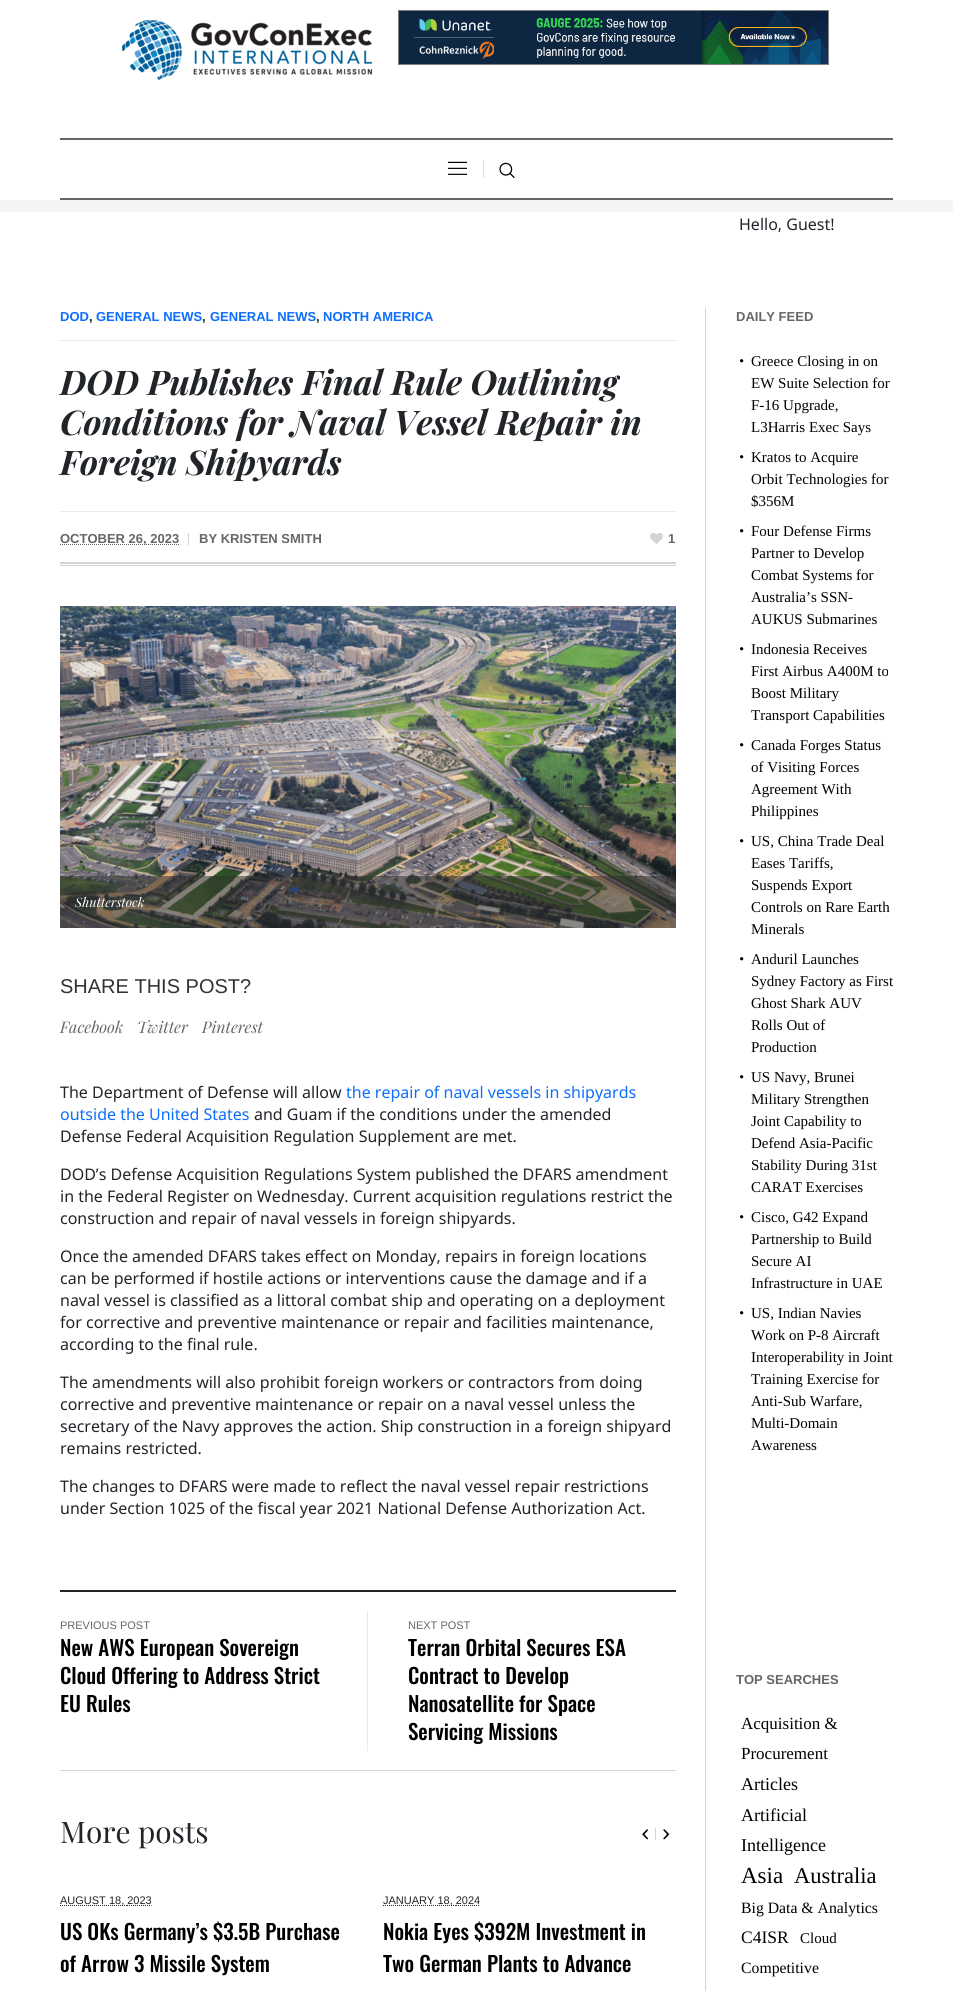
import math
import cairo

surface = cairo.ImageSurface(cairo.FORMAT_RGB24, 953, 1991)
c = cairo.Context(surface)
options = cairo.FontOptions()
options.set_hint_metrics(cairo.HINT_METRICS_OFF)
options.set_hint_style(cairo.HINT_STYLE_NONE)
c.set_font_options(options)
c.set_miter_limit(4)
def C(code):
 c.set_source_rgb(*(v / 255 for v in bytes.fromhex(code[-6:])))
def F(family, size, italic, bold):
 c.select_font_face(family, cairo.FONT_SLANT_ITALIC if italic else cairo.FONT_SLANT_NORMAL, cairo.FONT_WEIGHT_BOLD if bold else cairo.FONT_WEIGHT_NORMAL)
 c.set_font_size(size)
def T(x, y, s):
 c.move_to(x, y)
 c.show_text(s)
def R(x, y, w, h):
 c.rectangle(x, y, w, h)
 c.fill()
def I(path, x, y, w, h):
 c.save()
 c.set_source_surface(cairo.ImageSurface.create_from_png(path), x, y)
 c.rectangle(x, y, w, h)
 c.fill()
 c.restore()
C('f4f4f4')
c.paint()
C('ffffff')
R(0,0,953,200)
I('1.png',122,20,250,60)
c.rectangle(398.5,10.5,430,54)
C('808080')
c.set_line_width(1)
c.stroke()
I('2.png',399,11,429,53)
C('666666')
R(60,138,833,2)
R(60,198,833,2)
I('3.png',448,161,19,14)
C('dfdfdf')
R(483,160,1,18)
I('4.png',499,162,16,16)
C('ffffff')
R(0,212,953,1779)
F('Noto Sans',16,0,0)
C('212529')
T(739,230,'Hello, Guest!')
C('eaeaea')
R(60,340,616,1)
F('Liberation Sans',13,0,1)
C('0d6efd')
T(60,321,'DOD')
C('212529')
T(89,321,',')
C('0d6efd')
T(96,321,'GENERAL NEWS')
C('212529')
T(202,321,',')
C('0d6efd')
T(210,321,'GENERAL NEWS')
C('212529')
T(316,321,',')
C('0d6efd')
T(323,321,'NORTH AMERICA')
F('Playfair Display',34,1,1)
C('212529')
T(60,395,'DOD Publishes Final Rule Outlining')
T(60,435,'Conditions for Naval Vessel Repair in')
T(60,475,'Foreign Shipyards')
C('d4d4d4')
R(60,562,616,2)
R(60,565,616,1)
C('eaeaea')
R(60,511,616,1)
c.new_path()
c.move_to(60,544.5)
c.line_to(179,544.5)
C('666666')
c.set_dash([1,1])
c.stroke()
F('Liberation Sans',13,0,1)
T(60,543,'OCTOBER 26, 2023')
C('d4d4d4')
R(188,533,1,12)
C('666666')
T(199,543,'BY KRISTEN SMITH')
I('5.png',650,533,13,11)
T(668,543,'1')
I('6.png',60,606,616,322)
c.set_source_rgba(0.18,0.18,0.18,0.53)
R(60,876,616,52)
F('Playfair Display',13,1,0)
C('ffffff')
T(75,907,'Shutterstock')
F('Liberation Sans',20,0,0)
C('333333')
T(60,993,'SHARE THIS POST?')
F('Playfair Display',16,1,0)
C('666666')
T(60,1033,'Facebook')
T(137,1033,'Twitter')
T(202,1033,'Pinterest')
F('Noto Sans',16,0,0)
C('212529')
T(60,1098,'The Department of Defense will allow')
C('0d6efd')
T(346,1098,'the repair of naval vessels in shipyards')
T(60,1120,'outside the United States')
C('212529')
T(254,1120,'and Guam if the conditions under the amended')
T(60,1142,'Defense Federal Acquisition Regulation Supplement are met.')
T(60,1180,'DOD’s Defense Acquisition Regulations System published the DFARS amendment')
T(60,1202,'in the Federal Register on Wednesday. Current acquisition regulations restrict the')
T(60,1224,'construction and repair of naval vessels in foreign shipyards.')
T(60,1262,'Once the amended DFARS takes effect on Monday, repairs in foreign locations')
T(60,1284,'can be performed if hostile actions or interventions cause the damage and if a')
T(60,1306,'naval vessel is classified as a littoral combat ship and operating on a deployment')
T(60,1328,'for corrective and preventive maintenance or repair and facilities maintenance,')
T(60,1350,'according to the final rule.')
T(60,1388,'The amendments will also prohibit foreign workers or contractors from doing')
T(60,1410,'corrective and preventive maintenance or repair on a naval vessel unless the')
T(60,1432,'secretary of the Navy approves the action. Ship construction in a foreign shipyard')
T(60,1454,'remains restricted.')
T(60,1492,'The changes to DFARS were made to reflect the naval vessel repair restrictions')
T(60,1514,'under Section 1025 of the fiscal year 2021 National Defense Authorization Act.')
R(60,1590,616,2)
F('Liberation Sans',11,0,0)
C('666666')
T(60,1629,'PREVIOUS POST')
F('Oswald Medium',21,0,0)
C('000000')
T(60,1656,'New AWS European Sovereign')
T(60,1684,'Cloud Offering to Address Strict')
T(60,1712,'EU Rules')
C('eaeaea')
R(367,1611,1,140)
F('Liberation Sans',11,0,0)
C('666666')
T(408,1629,'NEXT POST')
F('Oswald Medium',21,0,0)
C('000000')
T(408,1656,'Terran Orbital Secures ESA')
T(408,1684,'Contract to Develop')
T(408,1712,'Nanosatellite for Space')
T(408,1740,'Servicing Missions')
C('d4d4d4')
R(60,1770,616,1)
F('Playfair Display',29.75,0,0)
C('212529')
T(60,1843,'More posts')
I('7.png',642,1829,6,11)
C('d4d4d4')
R(655,1828,1,12)
I('8.png',663,1829,7,11)
c.new_path()
c.move_to(60,1905.5)
c.line_to(127,1905.5)
C('212529')
c.stroke()
F('Liberation Sans',11,0,0)
T(60,1904,'AUGUST 18, 2023')
c.new_path()
c.move_to(127,1905.5)
c.line_to(151.5,1905.5)
c.stroke()
F('Oswald Medium',21,0,0)
C('000000')
T(60,1940,'US OKs Germany’s $3.5B Purchase')
T(60,1972,'of Arrow 3 Missile System')
c.new_path()
c.move_to(383,1905.5)
c.line_to(456,1905.5)
C('212529')
c.stroke()
F('Liberation Sans',11,0,0)
T(383,1904,'JANUARY 18, 2024')
c.new_path()
c.move_to(456,1905.5)
c.line_to(480,1905.5)
c.stroke()
F('Oswald Medium',21,0,0)
C('000000')
T(383,1940,'Nokia Eyes $392M Investment in')
T(383,1972,'Two German Plants to Advance')
C('d4d4d4')
R(705,308,1,1683)
F('Liberation Sans',13,0,1)
C('666666')
T(736,321,'DAILY FEED')
I('9.png',740,359,4,4)
F('Liberation Serif',15,0,0)
C('000000')
T(751,366,'Greece Closing in on')
T(751,388,'EW Suite Selection for')
T(751,410,'F-16 Upgrade,')
T(751,432,'L3Harris Exec Says')
I('9.png',740,455,4,4)
T(751,462,'Kratos to Acquire')
T(751,484,'Orbit Technologies for')
T(751,506,'$356M')
I('9.png',740,529,4,4)
T(751,536,'Four Defense Firms')
T(751,558,'Partner to Develop')
T(751,580,'Combat Systems for')
T(751,602,'Australia’s SSN-')
T(751,624,'AUKUS Submarines')
I('9.png',740,647,4,4)
T(751,654,'Indonesia Receives')
T(751,676,'First Airbus A400M to')
T(751,698,'Boost Military')
T(751,720,'Transport Capabilities')
I('9.png',740,743,4,4)
T(751,750,'Canada Forges Status')
T(751,772,'of Visiting Forces')
T(751,794,'Agreement With')
T(751,816,'Philippines')
I('9.png',740,839,4,4)
T(751,846,'US, China Trade Deal')
T(751,868,'Eases Tariffs,')
T(751,890,'Suspends Export')
T(751,912,'Controls on Rare Earth')
T(751,934,'Minerals')
I('9.png',740,957,4,4)
T(751,964,'Anduril Launches')
T(751,986,'Sydney Factory as First')
T(751,1008,'Ghost Shark AUV')
T(751,1030,'Rolls Out of')
T(751,1052,'Production')
I('9.png',740,1075,4,4)
T(751,1082,'US Navy, Brunei')
T(751,1104,'Military Strengthen')
T(751,1126,'Joint Capability to')
T(751,1148,'Defend Asia-Pacific')
T(751,1170,'Stability During 31st')
T(751,1192,'CARAT Exercises')
I('9.png',740,1215,4,4)
T(751,1222,'Cisco, G42 Expand')
T(751,1244,'Partnership to Build')
T(751,1266,'Secure AI')
T(751,1288,'Infrastructure in UAE')
I('9.png',740,1311,4,4)
T(751,1318,'US, Indian Navies')
T(751,1340,'Work on P-8 Aircraft')
T(751,1362,'Interoperability in Joint')
T(751,1384,'Training Exercise for')
T(751,1406,'Anti-Sub Warfare,')
T(751,1428,'Multi-Domain')
T(751,1450,'Awareness')
F('Liberation Sans',13,0,1)
C('666666')
T(736,1684,'TOP SEARCHES')
F('Liberation Serif',17,0,0)
C('000000')
T(741,1729,'Acquisition &')
T(741,1759,'Procurement')
F('Liberation Serif',18,0,0)
T(741,1790,'Articles')
T(741,1821,'Artificial')
T(741,1851,'Intelligence')
F('Liberation Serif',23,0,0)
T(741,1883,'Asia')
F('Liberation Serif',22.5,0,0)
T(794,1883,'Australia')
F('Liberation Serif',15.75,0,0)
T(741,1913,'Big Data & Analytics')
F('Liberation Serif',17.5,0,0)
T(741,1943,'C4ISR')
F('Liberation Serif',15,0,0)
T(800,1943,'Cloud')
F('Liberation Serif',15.75,0,0)
T(741,1973,'Competitive')
surface.write_to_png('o.png')
